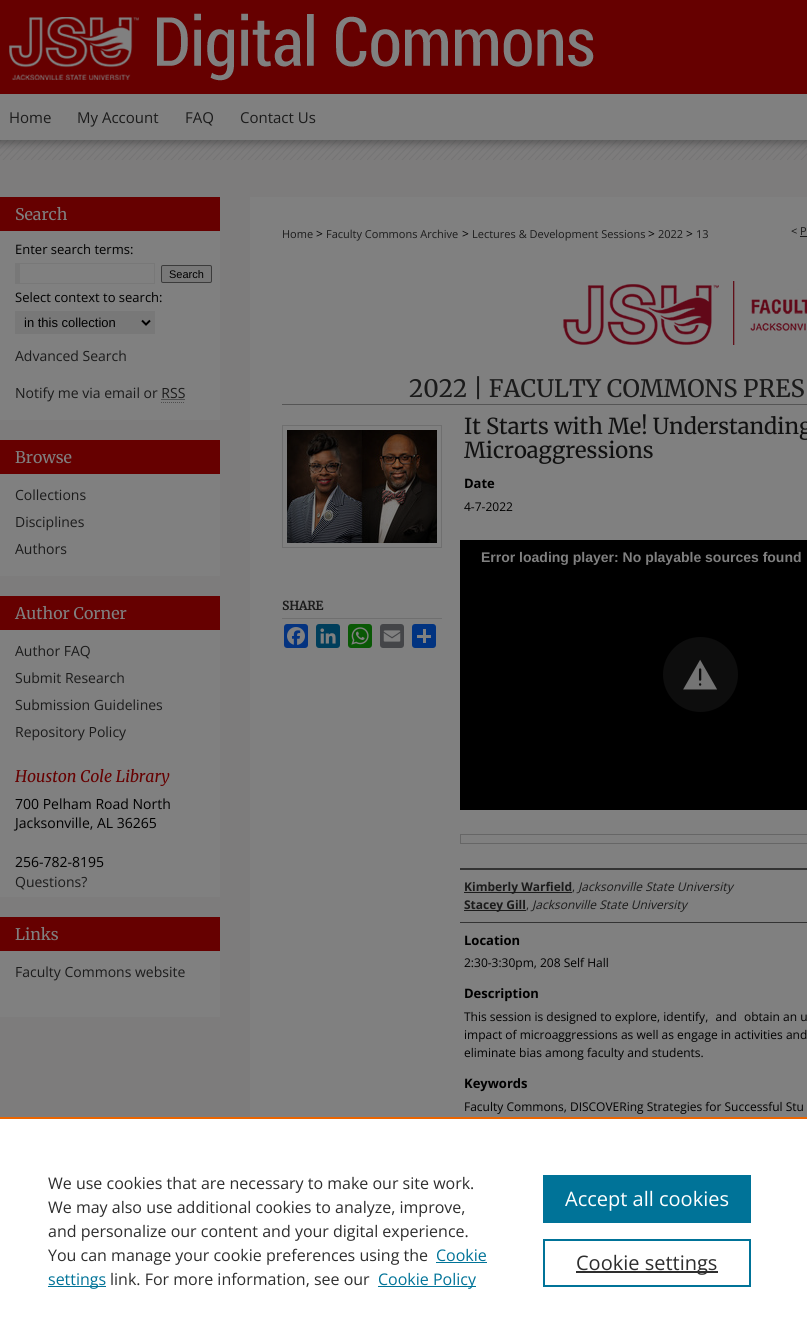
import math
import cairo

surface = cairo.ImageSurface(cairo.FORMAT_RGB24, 807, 1343)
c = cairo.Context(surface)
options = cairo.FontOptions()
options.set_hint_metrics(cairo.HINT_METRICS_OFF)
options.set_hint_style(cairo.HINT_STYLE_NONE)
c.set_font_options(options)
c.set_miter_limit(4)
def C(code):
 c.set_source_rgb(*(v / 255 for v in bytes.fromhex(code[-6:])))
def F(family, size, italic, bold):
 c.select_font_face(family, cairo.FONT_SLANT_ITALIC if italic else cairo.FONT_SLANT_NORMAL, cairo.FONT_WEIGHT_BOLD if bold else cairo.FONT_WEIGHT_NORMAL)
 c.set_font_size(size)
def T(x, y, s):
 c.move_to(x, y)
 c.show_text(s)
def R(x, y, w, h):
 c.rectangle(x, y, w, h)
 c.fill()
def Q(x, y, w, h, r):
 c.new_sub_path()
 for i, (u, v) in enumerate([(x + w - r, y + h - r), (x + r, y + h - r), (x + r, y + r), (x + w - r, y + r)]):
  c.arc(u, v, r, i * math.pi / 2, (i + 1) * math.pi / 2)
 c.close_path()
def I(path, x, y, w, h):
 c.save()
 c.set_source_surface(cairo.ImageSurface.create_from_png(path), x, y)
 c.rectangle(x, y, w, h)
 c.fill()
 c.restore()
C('7d7c7c')
c.paint()
I('1.png',0,0,807,160)
I('2.png',9,13,585,68)
F('Open Sans',15,0,0)
C('1b1b1b')
T(9,123,'Home')
T(77,123,'My Account')
T(185,123,'FAQ')
T(240,123,'Contact Us')
C('808080')
R(0,231,220,786)
C('660000')
R(0,197,220,34)
F('Merriweather Light',16,0,0)
C('808080')
T(15,220,'Search')
F('Open Sans',13,0,0)
C('000000')
T(15,254,'Enter search terms:')
C('787878')
R(15,263,140,1)
R(154,263,1,21)
R(15,283,140,1)
R(15,263,5,21)
Q(161.5,265.5,50,17,1.5)
c.fill_preserve()
C('3b3b3b')
c.set_line_width(1)
c.stroke()
F('Liberation Sans',11,0,0)
C('000000')
T(169,278,'Search')
F('Open Sans',13,0,0)
T(15,302,'Select context to search:')
C('787878')
R(20,312,134,21)
R(15,311,140,1)
R(154,311,1,23)
R(15,333,140,1)
R(15,311,5,23)
c.new_path()
c.move_to(142,320.5)
c.line_to(146,324.5)
c.line_to(150,320.5)
C('000000')
c.set_line_width(2)
c.stroke()
F('Liberation Sans',13,0,0)
T(24,327,'in this collection')
F('Open Sans',14,0,0)
C('1b1b1b')
T(15,361,'Advanced Search')
T(15,398,'Notify me via email or RSS')
c.new_path()
c.move_to(161.5,399.5)
c.line_to(185.5,399.5)
c.set_line_width(1)
c.set_dash([1,1])
c.stroke()
c.new_path()
c.move_to(161,402.5)
c.line_to(185,402.5)
C('4d4d4d')
c.stroke()
C('660000')
R(0,440,220,34)
C('7d7c7c')
R(0,420,220,20)
F('Merriweather Light',16,0,0)
C('808080')
T(15,463,'Browse')
F('Open Sans',14,0,0)
C('1b1b1b')
T(15,500,'Collections')
T(15,527,'Disciplines')
T(15,554,'Authors')
C('660000')
R(0,596,220,34)
C('7d7c7c')
R(0,576,220,20)
F('Merriweather Light',16,0,0)
C('808080')
T(15,619,'Author Corner')
F('Open Sans',14,0,0)
C('1b1b1b')
T(15,656,'Author FAQ')
T(15,683,'Submit Research')
T(15,710,'Submission Guidelines')
T(15,737,'Repository Policy')
F('Merriweather Light',16,1,0)
C('660000')
T(15,782,'Houston Cole Library')
F('Open Sans',14,0,0)
C('000000')
T(15,809,'700 Pelham Road North')
T(15,828,'Jacksonville, AL 36265')
T(15,867,'256-782-8195')
C('1b1b1b')
T(15,887,'Questions?')
C('660000')
R(0,917,220,34)
C('7d7c7c')
R(0,897,220,20)
F('Merriweather Light',16,0,0)
C('808080')
T(15,940,'Links')
F('Open Sans',14,0,0)
C('1b1b1b')
T(15,977,'Faculty Commons website')
C('808080')
R(250,197,557,920)
F('Open Sans',11,0,0)
C('1b1b1b')
T(282,238,'Home')
F('Open Sans',12,0,0)
C('000000')
T(316,238,'>')
F('Open Sans',11,0,0)
C('1b1b1b')
T(326,238,'Faculty Commons Archive')
F('Open Sans',12,0,0)
C('000000')
T(462,238,'>')
F('Open Sans',11,0,0)
C('1b1b1b')
T(472,238,'Lectures & Development Sessions')
F('Open Sans',12,0,0)
C('000000')
T(648,238,'>')
F('Open Sans',11,0,0)
C('1b1b1b')
T(658,238,'2022')
F('Open Sans',12,0,0)
C('000000')
T(686,238,'>')
F('Open Sans',11,0,0)
C('1b1b1b')
T(696,238,'13')
C('111111')
T(791,235,'<')
C('1b1b1b')
T(800,235,'P')
R(800,236,7,1)
I('3.png',563,281,244,64)
F('Merriweather Light',24,0,0)
T(409,397,'2022 | FACULTY COMMONS PRES')
c.rectangle(282.5,425.5,159,122)
C('6f6f6f')
c.set_dash([])
c.stroke()
I('4.png',287,430,150,113)
R(282,618,160,1)
F('Merriweather',12,0,1)
C('1b1b1b')
T(282,610,'SHARE')
C('043380')
Q(284,624,24,24,3)
c.fill()
I('5.png',287,627,18,18)
C('003e5b')
Q(316,624,24,24,3)
c.fill()
I('6.png',320,628,16,16)
C('095805')
Q(348,624,24,24,3)
c.fill()
I('7.png',351,627,18,18)
C('444548')
Q(380,624,24,24,3)
c.fill()
I('8.png',383,630,18,12)
C('013380')
Q(412,624,24,24,3)
c.fill()
C('808080')
R(423,629,3,14)
R(417,635,14,3)
C('555555')
R(282,404,525,1)
F('Merriweather Light',22,0,0)
C('111111')
T(464,434,'It Starts with Me! Understanding')
T(464,458,'Microaggressions')
F('Open Sans',13,0,1)
C('000000')
T(464,488,'Date')
F('Open Sans',12,0,0)
T(464,511,'4-7-2022')
R(460,540,347,270)
F('Liberation Sans',14,0,1)
C('808080')
T(481,562,'Error loading player: No playable sources found')
C('0d0d0d')
c.new_path()
c.arc(700.5,674.5,37.5,0,2 * math.pi)
c.fill()
I('9.png',683,659,34,31)
c.rectangle(460.5,834.5,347,9)
C('666666')
c.stroke()
C('333333')
R(460,868,347,2)
R(460,922,347,1)
C('1b1b1b')
R(464,892,108,1)
F('Open Sans',12,0,1)
T(464,891,'Kimberly Warfield')
F('Open Sans',12,0,0)
T(572,891,',')
F('Open Sans',12,1,0)
T(578,891,'Jacksonville State University')
R(464,910,62,1)
F('Open Sans',12,0,1)
T(464,909,'Stacey Gill')
F('Open Sans',12,0,0)
T(526,909,',')
F('Open Sans',12,1,0)
T(532,909,'Jacksonville State University')
F('Open Sans',13,0,1)
C('000000')
T(464,945,'Location')
F('Open Sans',12,0,0)
T(464,967,'2:30-3:30pm, 208 Self Hall')
F('Open Sans',13,0,1)
T(464,998,'Description')
F('Open Sans',12,0,0)
T(464,1021,'This session is designed to explore, identify, and obtain an un')
T(464,1039,'impact of microaggressions as well as engage in activities and')
T(464,1057,'eliminate bias among faculty and students.')
F('Open Sans',13,0,1)
T(464,1088,'Keywords')
F('Open Sans',12,0,0)
T(464,1111,'Faculty Commons, DISCOVERing Strategies for Successful Stu')
C('ffffff')
R(0,1119,807,224)
C('eb6500')
R(0,1117,807,2)
F('Open Sans',16,0,0)
C('2e2e2e')
T(48,1189,'We use cookies that are necessary to make our site work.')
T(48,1213,'We may also use additional cookies to analyze, improve,')
T(48,1237,'and personalize our content and your digital experience.')
T(48,1261,'You can manage your cookie preferences using the')
C('007398')
T(436,1261,'Cookie')
R(436,1262,51,1)
R(48,1286,58,1)
T(48,1285,'settings')
C('2e2e2e')
T(110,1285,'link. For more information, see our')
C('007398')
R(378,1286,98,1)
T(378,1285,'Cookie Policy')
R(543,1175,208,48)
F('Open Sans',20,0,0)
C('ffffff')
T(565,1206,'Accept all cookies')
c.rectangle(544,1240,206,46)
C('007398')
c.set_line_width(2)
c.stroke()
C('2e2e2e')
R(576,1271,142,2)
T(576,1270,'Cookie settings')
surface.write_to_png('o.png')
